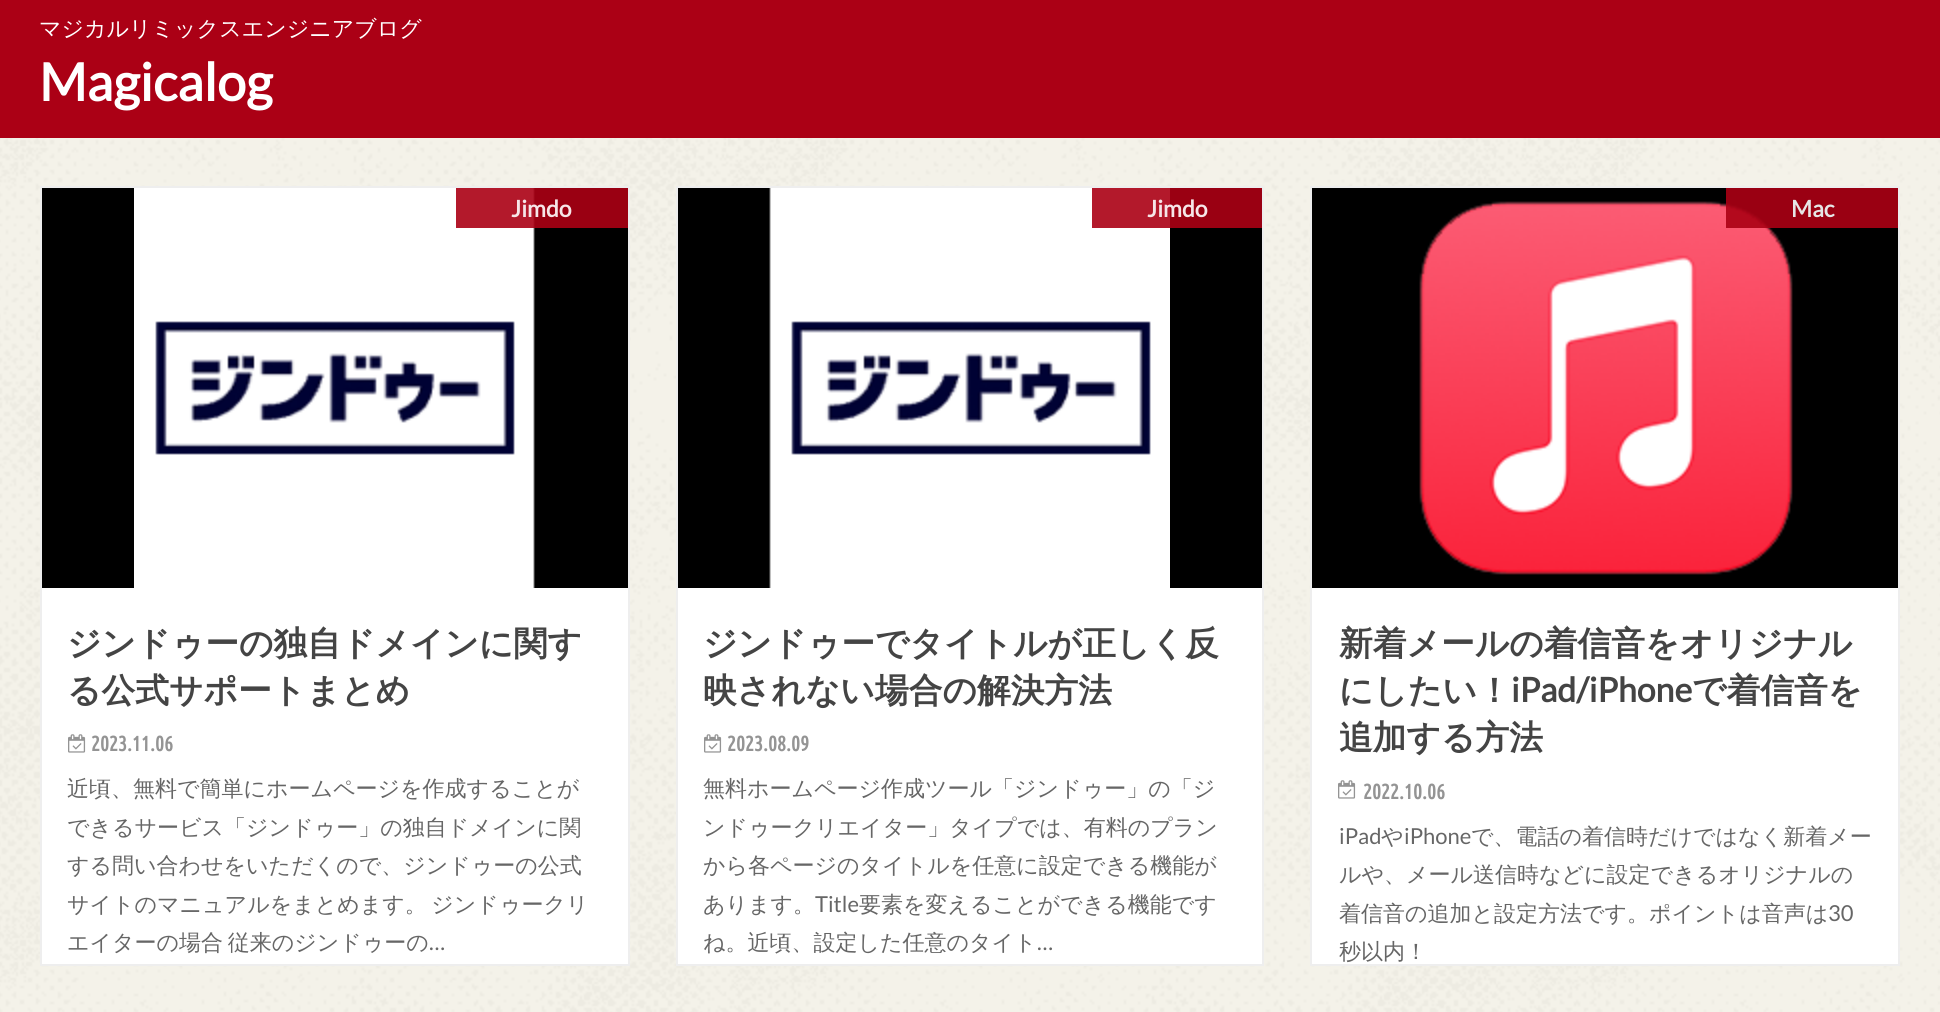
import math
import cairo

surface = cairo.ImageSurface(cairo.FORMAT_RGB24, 1940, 1012)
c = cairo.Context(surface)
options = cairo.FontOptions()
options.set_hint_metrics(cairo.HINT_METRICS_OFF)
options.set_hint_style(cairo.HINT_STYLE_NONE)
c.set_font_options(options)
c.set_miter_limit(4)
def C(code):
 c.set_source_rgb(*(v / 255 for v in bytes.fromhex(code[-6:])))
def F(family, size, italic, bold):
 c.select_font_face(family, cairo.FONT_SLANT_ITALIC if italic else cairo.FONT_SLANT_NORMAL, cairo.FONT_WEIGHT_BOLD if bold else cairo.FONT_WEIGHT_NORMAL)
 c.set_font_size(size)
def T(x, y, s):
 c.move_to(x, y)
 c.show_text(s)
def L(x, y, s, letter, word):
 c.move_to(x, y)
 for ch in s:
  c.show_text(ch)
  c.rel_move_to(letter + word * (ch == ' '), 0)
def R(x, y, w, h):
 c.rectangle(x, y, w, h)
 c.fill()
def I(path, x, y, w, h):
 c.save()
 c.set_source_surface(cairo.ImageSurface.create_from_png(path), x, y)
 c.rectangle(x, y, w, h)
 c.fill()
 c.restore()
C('ffffff')
c.paint()
I('1.png',0,138,1940,874)
C('ab0015')
R(0,0,1940,138)
F('WenQuanYi Zen Hei Medium',22,0,0)
C('ffffff')
T(39,36,'マジカルリミックスエンジニアブログ')
F('Lato',52,0,1)
T(39,101,'Magicalog')
R(42,588,586,376)
c.rectangle(41,187,588,778)
C('eeeeee')
c.stroke()
C('000000')
R(42,188,586,400)
I('2.png',134,188,401,400)
c.set_source_rgba(0.671,0,0.082,0.9)
R(456,188,172,40)
F('Lato',23,0,1)
C('f6e6e8')
T(511,217,'Jimdo')
F('WenQuanYi Zen Hei',33.75,0,1)
C('444444')
T(67,655,'ジンドゥーの独自ドメインに関す')
T(67,702,'る公式サポートまとめ')
I('3.png',68,734,18,19)
F('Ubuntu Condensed',21,0,1)
C('949494')
T(91,751,'2023.11.06')
F('WenQuanYi Zen Hei Medium',22,0,0)
C('666666')
T(67,796,'近頃、無料で簡単にホームページを作成することが')
T(67,835,'できるサービス「ジンドゥー」の独自ドメインに関')
T(67,873,'する問い合わせをいただくので、ジンドゥーの公式')
L(67,912,'サイトのマニュアルをまとめます。 ジンドゥークリ',0,-2)
L(67,950,'エイターの場合 従来のジンドゥーの',0,-2)
F('Lato',22,0,0)
T(429,950,'…')
C('ffffff')
R(678,588,584,376)
c.rectangle(677,187,586,778)
C('eeeeee')
c.stroke()
C('000000')
R(678,188,584,400)
I('4.png',769,188,401,400)
c.set_source_rgba(0.671,0,0.082,0.9)
R(1092,188,170,40)
F('Lato',23,0,1)
C('f6e6e8')
T(1147,217,'Jimdo')
F('WenQuanYi Zen Hei',33.75,0,1)
C('444444')
T(703,655,'ジンドゥーでタイトルが正しく反')
T(703,702,'映されない場合の解決方法')
I('3.png',704,734,18,19)
F('Ubuntu Condensed',21,0,1)
C('949494')
T(727,751,'2023.08.09')
F('WenQuanYi Zen Hei Medium',22,0,0)
C('666666')
T(703,796,'無料ホームページ作成ツール「ジンドゥー」の「ジ')
T(703,835,'ンドゥークリエイター」タイプでは、有料のプラン')
T(703,873,'から各ページのタイトルを任意に設定できる機能が')
T(703,912,'あります。')
F('Lato',22,0,0)
T(815,912,'Title')
F('WenQuanYi Zen Hei Medium',22,0,0)
T(859,912,'要素を変えることができる機能です')
T(703,950,'ね。近頃、設定した任意のタイト')
F('Lato',22,0,0)
T(1037,950,'…')
C('ffffff')
R(1312,588,586,376)
c.rectangle(1311,187,588,778)
C('eeeeee')
c.stroke()
C('000000')
R(1312,188,586,400)
I('5.png',1419,201,374,374)
c.set_source_rgba(0.671,0,0.082,0.9)
R(1726,188,172,40)
F('Lato',23,0,1)
C('e6e6e6')
T(1791,217,'Mac')
F('WenQuanYi Zen Hei',33.75,0,1)
C('444444')
T(1339,655,'新着メールの着信音をオリジナル')
T(1339,702,'にしたい！')
F('Lato',33.75,0,1)
T(1511,702,'iPad/iPhone')
F('WenQuanYi Zen Hei',33.75,0,1)
T(1692,702,'で着信音を')
T(1339,749,'追加する方法')
I('3.png',1338,780,18,19)
F('Ubuntu Condensed',21,0,1)
C('949494')
T(1363,799,'2022.10.06')
F('Lato',22,0,0)
C('666666')
T(1339,844,'iPad')
F('WenQuanYi Zen Hei Medium',22,0,0)
T(1381,844,'や')
F('Lato',22,0,0)
T(1404,844,'iPhone')
F('WenQuanYi Zen Hei Medium',22,0,0)
T(1471,844,'で、電話の着信時だけではなく新着メー')
T(1339,882,'ルや、メール送信時などに設定できるオリジナルの')
T(1339,921,'着信音の追加と設定方法です。ポイントは音声は')
F('Lato',22,0,0)
T(1828,921,'30')
F('WenQuanYi Zen Hei Medium',22,0,0)
T(1339,959,'秒以内！')
surface.write_to_png('o.png')
